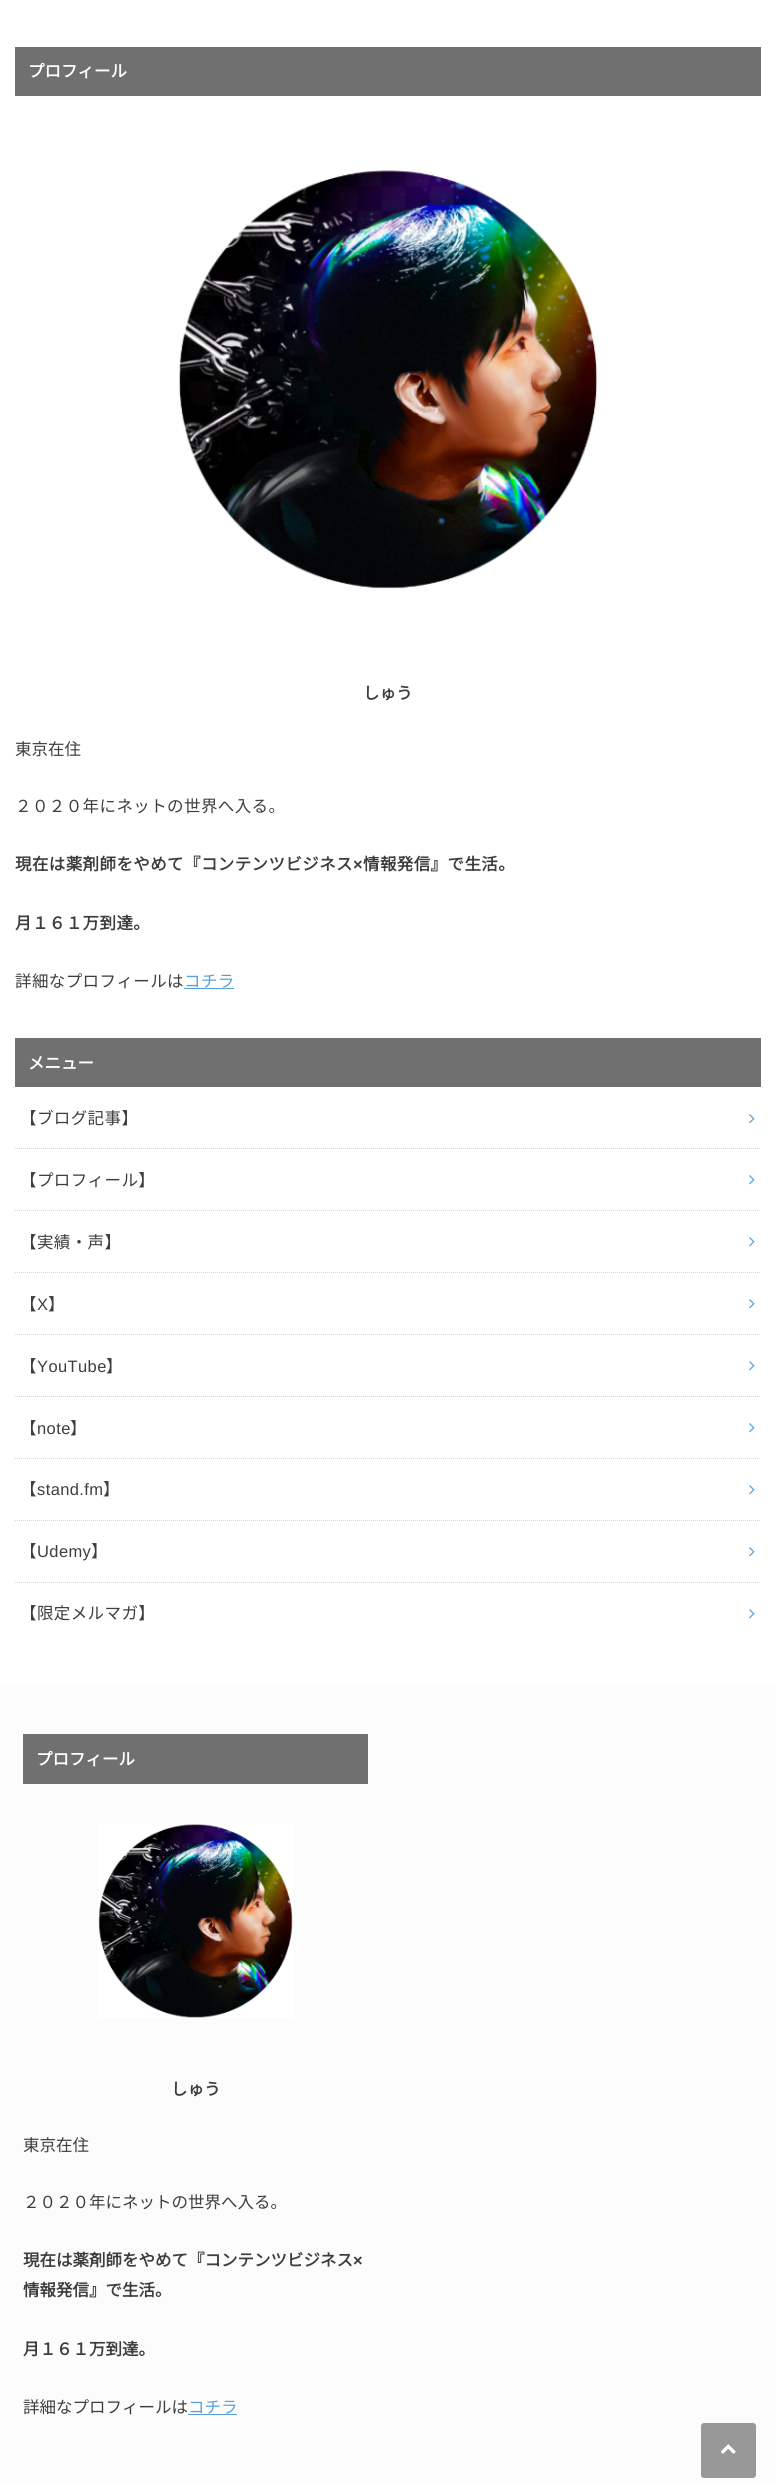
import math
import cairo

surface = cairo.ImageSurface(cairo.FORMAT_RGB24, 776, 2488)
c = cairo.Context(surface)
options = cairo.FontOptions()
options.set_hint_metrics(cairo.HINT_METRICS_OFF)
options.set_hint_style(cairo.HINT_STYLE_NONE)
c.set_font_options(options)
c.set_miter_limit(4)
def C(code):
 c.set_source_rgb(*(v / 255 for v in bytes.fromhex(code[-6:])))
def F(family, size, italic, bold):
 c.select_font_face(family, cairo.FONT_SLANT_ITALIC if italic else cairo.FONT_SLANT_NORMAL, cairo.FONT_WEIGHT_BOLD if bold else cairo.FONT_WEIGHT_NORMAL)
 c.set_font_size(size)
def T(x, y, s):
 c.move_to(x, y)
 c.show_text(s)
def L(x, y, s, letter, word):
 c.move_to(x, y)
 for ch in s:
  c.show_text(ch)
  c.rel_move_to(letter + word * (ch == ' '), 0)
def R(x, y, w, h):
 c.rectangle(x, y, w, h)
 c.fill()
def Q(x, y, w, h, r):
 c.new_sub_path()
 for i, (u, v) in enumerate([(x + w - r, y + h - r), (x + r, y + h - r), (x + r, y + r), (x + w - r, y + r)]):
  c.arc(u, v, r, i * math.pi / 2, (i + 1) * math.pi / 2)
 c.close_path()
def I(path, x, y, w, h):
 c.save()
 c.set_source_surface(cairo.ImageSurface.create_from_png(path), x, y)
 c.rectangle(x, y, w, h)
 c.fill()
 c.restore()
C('ffffff')
c.paint()
C('707070')
R(15,47,746,49)
F('Noto Sans JP',16.5,0,1)
C('ffffff')
T(28,77,'プロフィール')
I('1.png',179,170,418,419)
C('3e3e3e')
T(363,699,'しゅう')
F('Noto Sans JP Thin',16.5,0,0)
T(15,755,'東京在住')
L(15,812,'２０２０年にネットの世界へ入る。',.4,0)
F('Noto Sans JP',16.5,0,1)
L(15,870,'現在は薬剤師をやめて『コンテンツビジネス',.4,0)
F('Liberation Sans',16.5,0,1)
L(353,870,'×',.4,0)
F('Noto Sans JP',16.5,0,1)
L(363,870,'情報発信』で生活。',.4,0)
L(15,929,'月１６１万到達。',.4,0)
F('Noto Sans JP Thin',16.5,0,0)
L(15,987,'詳細なプロフィールは',.4,0)
C('57a1d8')
L(184,987,'コチラ',.4,0)
R(184,988,50,1)
C('707070')
R(15,1038,746,49)
F('Noto Sans JP',16.5,0,1)
C('ffffff')
T(28,1069,'メニュー')
c.new_path()
c.move_to(15,1148.5)
c.line_to(761,1148.5)
C('d8d8d8')
c.set_line_width(1)
c.set_dash([1,1])
c.stroke()
F('Noto Sans JP Thin',16.5,0,0)
C('3e3e3e')
L(20,1124,'【ブログ記事】',.4,0)
I('2.png',749,1114,6,10)
c.new_path()
c.move_to(15,1210.5)
c.line_to(761,1210.5)
C('d8d8d8')
c.stroke()
C('3e3e3e')
L(20,1186,'【プロフィール】',.4,0)
I('2.png',749,1175,6,10)
c.new_path()
c.move_to(15,1272.5)
c.line_to(761,1272.5)
C('d8d8d8')
c.stroke()
C('3e3e3e')
L(20,1248,'【実績・声】',.4,0)
I('2.png',749,1237,6,10)
c.new_path()
c.move_to(15,1334.5)
c.line_to(761,1334.5)
C('d8d8d8')
c.stroke()
C('3e3e3e')
L(20,1310,'【',.4,0)
F('Liberation Sans',16.5,0,0)
L(37,1310,'X',.4,0)
F('Noto Sans JP Thin',16.5,0,0)
L(48,1310,'】',.4,0)
I('2.png',749,1299,6,10)
c.new_path()
c.move_to(15,1396.5)
c.line_to(761,1396.5)
C('d8d8d8')
c.stroke()
C('3e3e3e')
L(20,1372,'【',.4,0)
F('Liberation Sans',16.5,0,0)
L(37,1372,'YouTube',.4,0)
F('Noto Sans JP Thin',16.5,0,0)
L(106,1372,'】',.4,0)
I('2.png',749,1361,6,10)
c.new_path()
c.move_to(15,1458.5)
c.line_to(761,1458.5)
C('d8d8d8')
c.stroke()
C('3e3e3e')
L(20,1434,'【',.4,0)
F('Liberation Sans',16.5,0,0)
L(37,1434,'note',.4,0)
F('Noto Sans JP Thin',16.5,0,0)
L(70,1434,'】',.4,0)
I('2.png',749,1423,6,10)
c.new_path()
c.move_to(15,1520.5)
c.line_to(761,1520.5)
C('d8d8d8')
c.stroke()
C('3e3e3e')
L(20,1495,'【',.4,0)
F('Liberation Sans',16.5,0,0)
L(37,1495,'stand.fm',.4,0)
F('Noto Sans JP Thin',16.5,0,0)
L(103,1495,'】',.4,0)
I('2.png',749,1485,6,10)
c.new_path()
c.move_to(15,1582.5)
c.line_to(761,1582.5)
C('d8d8d8')
c.stroke()
C('3e3e3e')
L(20,1557,'【',.4,0)
F('Liberation Sans',16.5,0,0)
L(37,1557,'Udemy',.4,0)
F('Noto Sans JP Thin',16.5,0,0)
L(91,1557,'】',.4,0)
I('2.png',749,1547,6,10)
L(20,1619,'【限定メルマガ】',.4,0)
I('2.png',749,1609,6,10)
C('fcfcfc')
R(0,1685,776,799)
C('707070')
R(23,1734,345,50)
F('Noto Sans JP',16.5,0,1)
C('ffffff')
T(36,1765,'プロフィール')
I('3.png',98,1824,195,194)
C('3e3e3e')
T(171,2095,'しゅう')
F('Noto Sans JP Thin',16.5,0,0)
T(23,2151,'東京在住')
T(23,2208,'２０２０年にネットの世界へ入る。')
F('Noto Sans JP',16.5,0,1)
T(23,2266,'現在は薬剤師をやめて『コンテンツビジネス')
F('Liberation Sans',16.5,0,1)
T(353,2266,'×')
F('Noto Sans JP',16.5,0,1)
T(23,2296,'情報発信』で生活。')
T(23,2355,'月１６１万到達。')
F('Noto Sans JP Thin',16.5,0,0)
T(23,2413,'詳細なプロフィールは')
C('57a1d8')
T(188,2413,'コチラ')
R(188,2414,49,1)
C('989898')
Q(701,2423,55,55,3)
c.fill()
I('4.png',720,2444,16,10)
surface.write_to_png('o.png')
